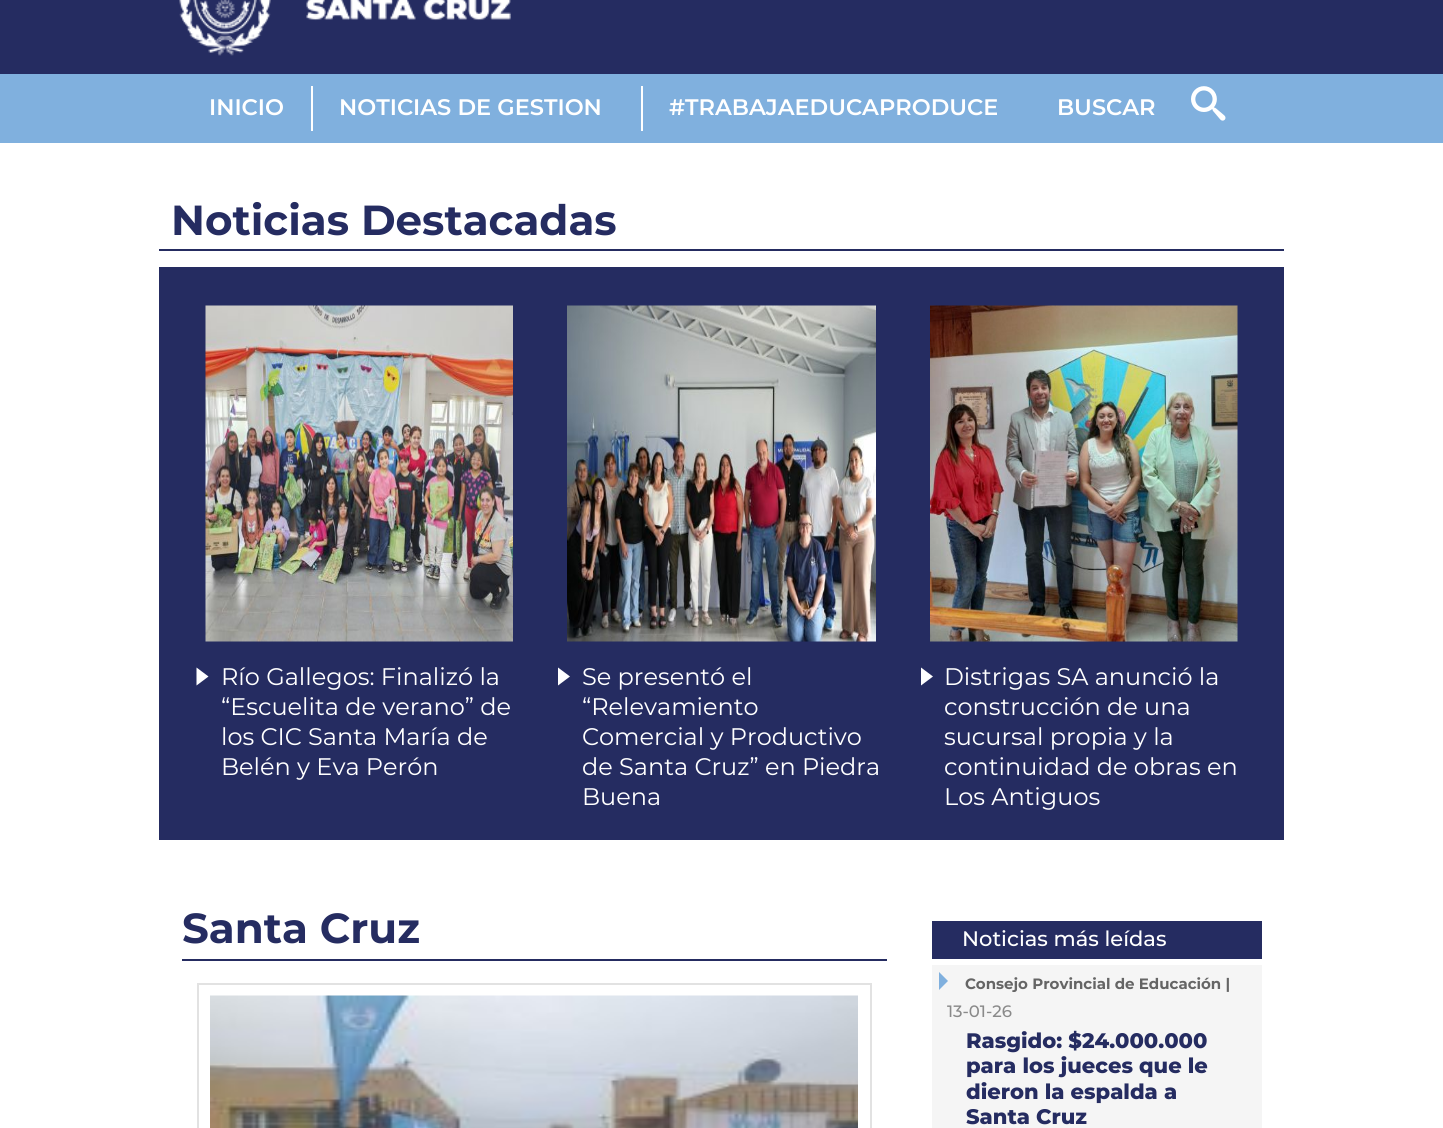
import math
import cairo

surface = cairo.ImageSurface(cairo.FORMAT_RGB24, 1443, 1128)
c = cairo.Context(surface)
options = cairo.FontOptions()
options.set_hint_metrics(cairo.HINT_METRICS_OFF)
options.set_hint_style(cairo.HINT_STYLE_NONE)
c.set_font_options(options)
c.set_miter_limit(4)
def C(code):
 c.set_source_rgb(*(v / 255 for v in bytes.fromhex(code[-6:])))
def F(family, size, italic, bold):
 c.select_font_face(family, cairo.FONT_SLANT_ITALIC if italic else cairo.FONT_SLANT_NORMAL, cairo.FONT_WEIGHT_BOLD if bold else cairo.FONT_WEIGHT_NORMAL)
 c.set_font_size(size)
def T(x, y, s):
 c.move_to(x, y)
 c.show_text(s)
def R(x, y, w, h):
 c.rectangle(x, y, w, h)
 c.fill()
def I(path, x, y, w, h):
 c.save()
 c.set_source_surface(cairo.ImageSurface.create_from_png(path), x, y)
 c.rectangle(x, y, w, h)
 c.fill()
 c.restore()
C('ffffff')
c.paint()
C('252c61')
R(0,0,1443,74)
I('1.png',179,0,332,56)
C('80b0de')
R(0,74,1443,69)
C('ffffff')
R(311,86,2,45)
F('Montserrat SemiBold',22.5,0,0)
T(209,115,'INICIO')
R(641,86,2,45)
T(339,115,'NOTICIAS DE GESTION')
T(669,115,'#TRABAJAEDUCAPRODUCE')
T(1057,115,'BUSCAR')
I('2.png',1191,86,35,35)
C('252c61')
R(159,249,1125,2)
F('Montserrat',42,0,1)
T(171,235,'Noticias Destacadas')
R(159,267,1125,573)
I('3.png',205,305,308,337)
C('ffffff')
c.new_path()
c.move_to(196.5,685.5)
c.line_to(196.5,667.5)
c.line_to(208.5,676.5)
c.close_path()
c.fill()
F('Montserrat',24,0,0)
T(221,685,'Río Gallegos: Finalizó la')
T(221,715,'“Escuelita de verano” de')
T(221,745,'los CIC Santa María de')
T(221,775,'Belén y Eva Perón')
I('4.png',567,305,309,337)
c.new_path()
c.move_to(558,685.5)
c.line_to(558,667.5)
c.line_to(570,676.5)
c.close_path()
c.fill()
T(582,685,'Se presentó el')
T(582,715,'“Relevamiento')
T(582,745,'Comercial y Productivo')
T(582,775,'de Santa Cruz” en Piedra')
T(582,805,'Buena')
I('5.png',930,305,308,337)
c.new_path()
c.move_to(921,685.5)
c.line_to(921,667.5)
c.line_to(933,676.5)
c.close_path()
c.fill()
T(944,685,'Distrigas SA anunció la')
T(944,715,'construcción de una')
T(944,745,'sucursal propia y la')
T(944,775,'continuidad de obras en')
T(944,805,'Los Antiguos')
C('252c61')
R(182,959,705,2)
F('Montserrat',42,0,1)
T(182,943,'Santa Cruz')
c.rectangle(198,984,673,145)
C('e2e2e2')
c.stroke()
I('6.png',210,995,648,133)
C('252c61')
R(932,921,330,38)
F('Montserrat Medium',21,0,0)
C('ffffff')
T(962,946,'Noticias más leídas')
C('f5f5f5')
R(932,965,330,163)
C('80b0de')
c.new_path()
c.move_to(939,990)
c.line_to(939,972)
c.line_to(948,981)
c.close_path()
c.fill()
F('Montserrat',15,0,1)
C('656565')
T(965,989,'Consejo Provincial de Educación |')
F('Montserrat Medium',16.5,0,0)
C('8a8a8a')
T(947,1017,'13-01-26')
F('Montserrat ExtraBold',21,0,0)
C('252c61')
T(966,1048,'Rasgido: $24.000.000')
T(966,1073,'para los jueces que le')
T(966,1099,'dieron la espalda a')
T(966,1124,'Santa Cruz')
surface.write_to_png('o.png')
